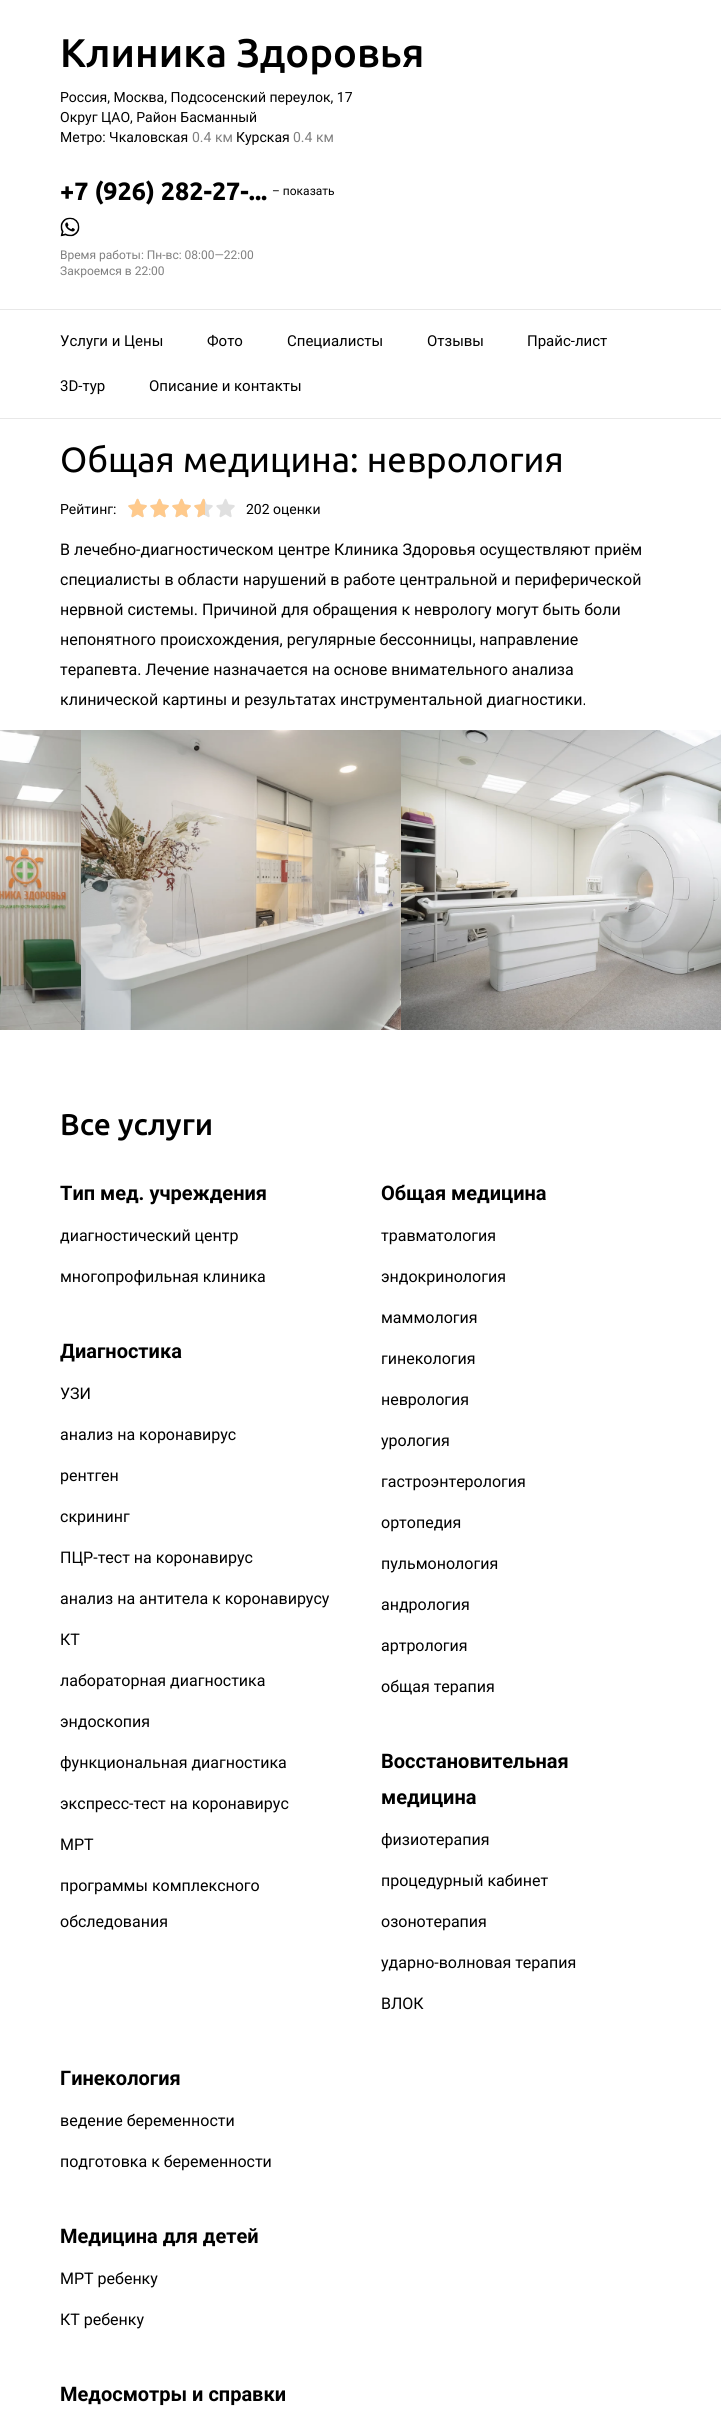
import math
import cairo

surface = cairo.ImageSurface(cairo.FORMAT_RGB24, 721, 2420)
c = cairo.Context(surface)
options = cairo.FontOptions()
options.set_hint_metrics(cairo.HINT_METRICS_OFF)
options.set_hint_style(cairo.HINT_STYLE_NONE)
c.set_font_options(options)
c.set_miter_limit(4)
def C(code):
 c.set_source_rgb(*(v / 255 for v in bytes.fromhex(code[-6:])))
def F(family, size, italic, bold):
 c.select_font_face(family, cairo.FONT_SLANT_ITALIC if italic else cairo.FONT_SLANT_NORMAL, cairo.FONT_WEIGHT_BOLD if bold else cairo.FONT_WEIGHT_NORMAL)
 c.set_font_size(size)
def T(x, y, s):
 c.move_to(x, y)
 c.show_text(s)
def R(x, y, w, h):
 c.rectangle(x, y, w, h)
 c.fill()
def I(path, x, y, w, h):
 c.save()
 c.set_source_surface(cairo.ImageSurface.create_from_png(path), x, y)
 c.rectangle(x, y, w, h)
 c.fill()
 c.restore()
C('ffffff')
c.paint()
F('Ubuntu Medium',40,0,0)
C('000000')
T(60,67,'Клиника Здоровья')
F('Roboto',14,0,0)
T(60,102,'Россия, Москва, Подсосенский переулок, 17')
T(60,122,'Округ ЦАО, Район Басманный')
T(60,142,'Метро: Чкаловская')
C('808080')
T(192,142,'0.4 км')
C('000000')
T(236,142,'Курская')
C('808080')
T(293,142,'0.4 км')
F('Ubuntu',25,0,1)
C('000000')
T(60,200,'+7 (926) 282-27-...')
F('Roboto',12,0,0)
T(272,195,'– показать')
I('1.png',60,217,20,20)
C('808080')
T(60,259,'Время работы: Пн-вс: 08:00—22:00')
T(60,275,'Закроемся в 22:00')
C('e8e8e8')
R(0,309,721,1)
R(0,418,721,1)
F('Roboto',15,0,0)
C('000000')
T(60,346,'Услуги и Цены')
T(207,346,'Фото')
T(287,346,'Специалисты')
T(427,346,'Отзывы')
T(527,346,'Прайс-лист')
T(60,391,'3D-тур')
T(149,391,'Описание и контакты')
F('Ubuntu',35,0,0)
T(60,472,'Общая медицина: неврология')
F('Roboto',14,0,0)
T(60,514,'Рейтинг:')
I('2.png',128,498,19,20)
I('3.png',128,498,19,20)
I('2.png',150,498,19,20)
I('3.png',150,498,19,20)
I('2.png',172,498,19,20)
I('3.png',172,498,19,20)
I('2.png',194,498,19,20)
I('4.png',194,498,11,20)
I('2.png',216,498,19,20)
T(246,514,'202 оценки')
F('Roboto',16,0,0)
T(60,555,'В лечебно-диагностическом центре Клиника Здоровья осуществляют приём')
T(60,585,'специалисты в области нарушений в работе центральной и периферической')
T(60,615,'нервной системы. Причиной для обращения к неврологу могут быть боли')
T(60,645,'непонятного происхождения, регулярные бессонницы, направление')
T(60,675,'терапевта. Лечение назначается на основе внимательного анализа')
T(60,705,'клинической картины и результатах инструментальной диагностики.')
I('5.png',0,730,81,300)
I('6.png',81,730,320,300)
I('7.png',401,730,320,300)
F('Ubuntu Medium',30,0,0)
T(60,1135,'Все услуги')
F('Roboto',20,0,1)
T(60,1200,'Тип мед. учреждения')
F('Roboto',16,0,0)
T(60,1241,'диагностический центр')
T(60,1282,'многопрофильная клиника')
F('Roboto',20,0,1)
T(60,1358,'Диагностика')
F('Roboto',16,0,0)
T(60,1399,'УЗИ')
T(60,1440,'анализ на коронавирус')
T(60,1481,'рентген')
T(60,1522,'скрининг')
T(60,1563,'ПЦР-тест на коронавирус')
T(60,1604,'анализ на антитела к коронавирусу')
T(60,1645,'КТ')
T(60,1686,'лабораторная диагностика')
T(60,1727,'эндоскопия')
T(60,1768,'функциональная диагностика')
T(60,1809,'экспресс-тест на коронавирус')
T(60,1850,'МРТ')
T(60,1891,'программы комплексного')
T(60,1927,'обследования')
F('Roboto',20,0,1)
T(381,1200,'Общая медицина')
F('Roboto',16,0,0)
T(381,1241,'травматология')
T(381,1282,'эндокринология')
T(381,1323,'маммология')
T(381,1364,'гинекология')
T(381,1405,'неврология')
T(381,1446,'урология')
T(381,1487,'гастроэнтерология')
T(381,1528,'ортопедия')
T(381,1569,'пульмонология')
T(381,1610,'андрология')
T(381,1651,'артрология')
T(381,1692,'общая терапия')
F('Roboto',20,0,1)
T(381,1768,'Восстановительная')
T(381,1804,'медицина')
F('Roboto',16,0,0)
T(381,1845,'физиотерапия')
T(381,1886,'процедурный кабинет')
T(381,1927,'озонотерапия')
T(381,1968,'ударно-волновая терапия')
T(381,2009,'ВЛОК')
F('Roboto',20,0,1)
T(60,2085,'Гинекология')
F('Roboto',16,0,0)
T(60,2126,'ведение беременности')
T(60,2167,'подготовка к беременности')
F('Roboto',20,0,1)
T(60,2243,'Медицина для детей')
F('Roboto',16,0,0)
T(60,2284,'МРТ ребенку')
T(60,2325,'КТ ребенку')
F('Roboto',20,0,1)
T(60,2401,'Медосмотры и справки')
surface.write_to_png('o.png')
